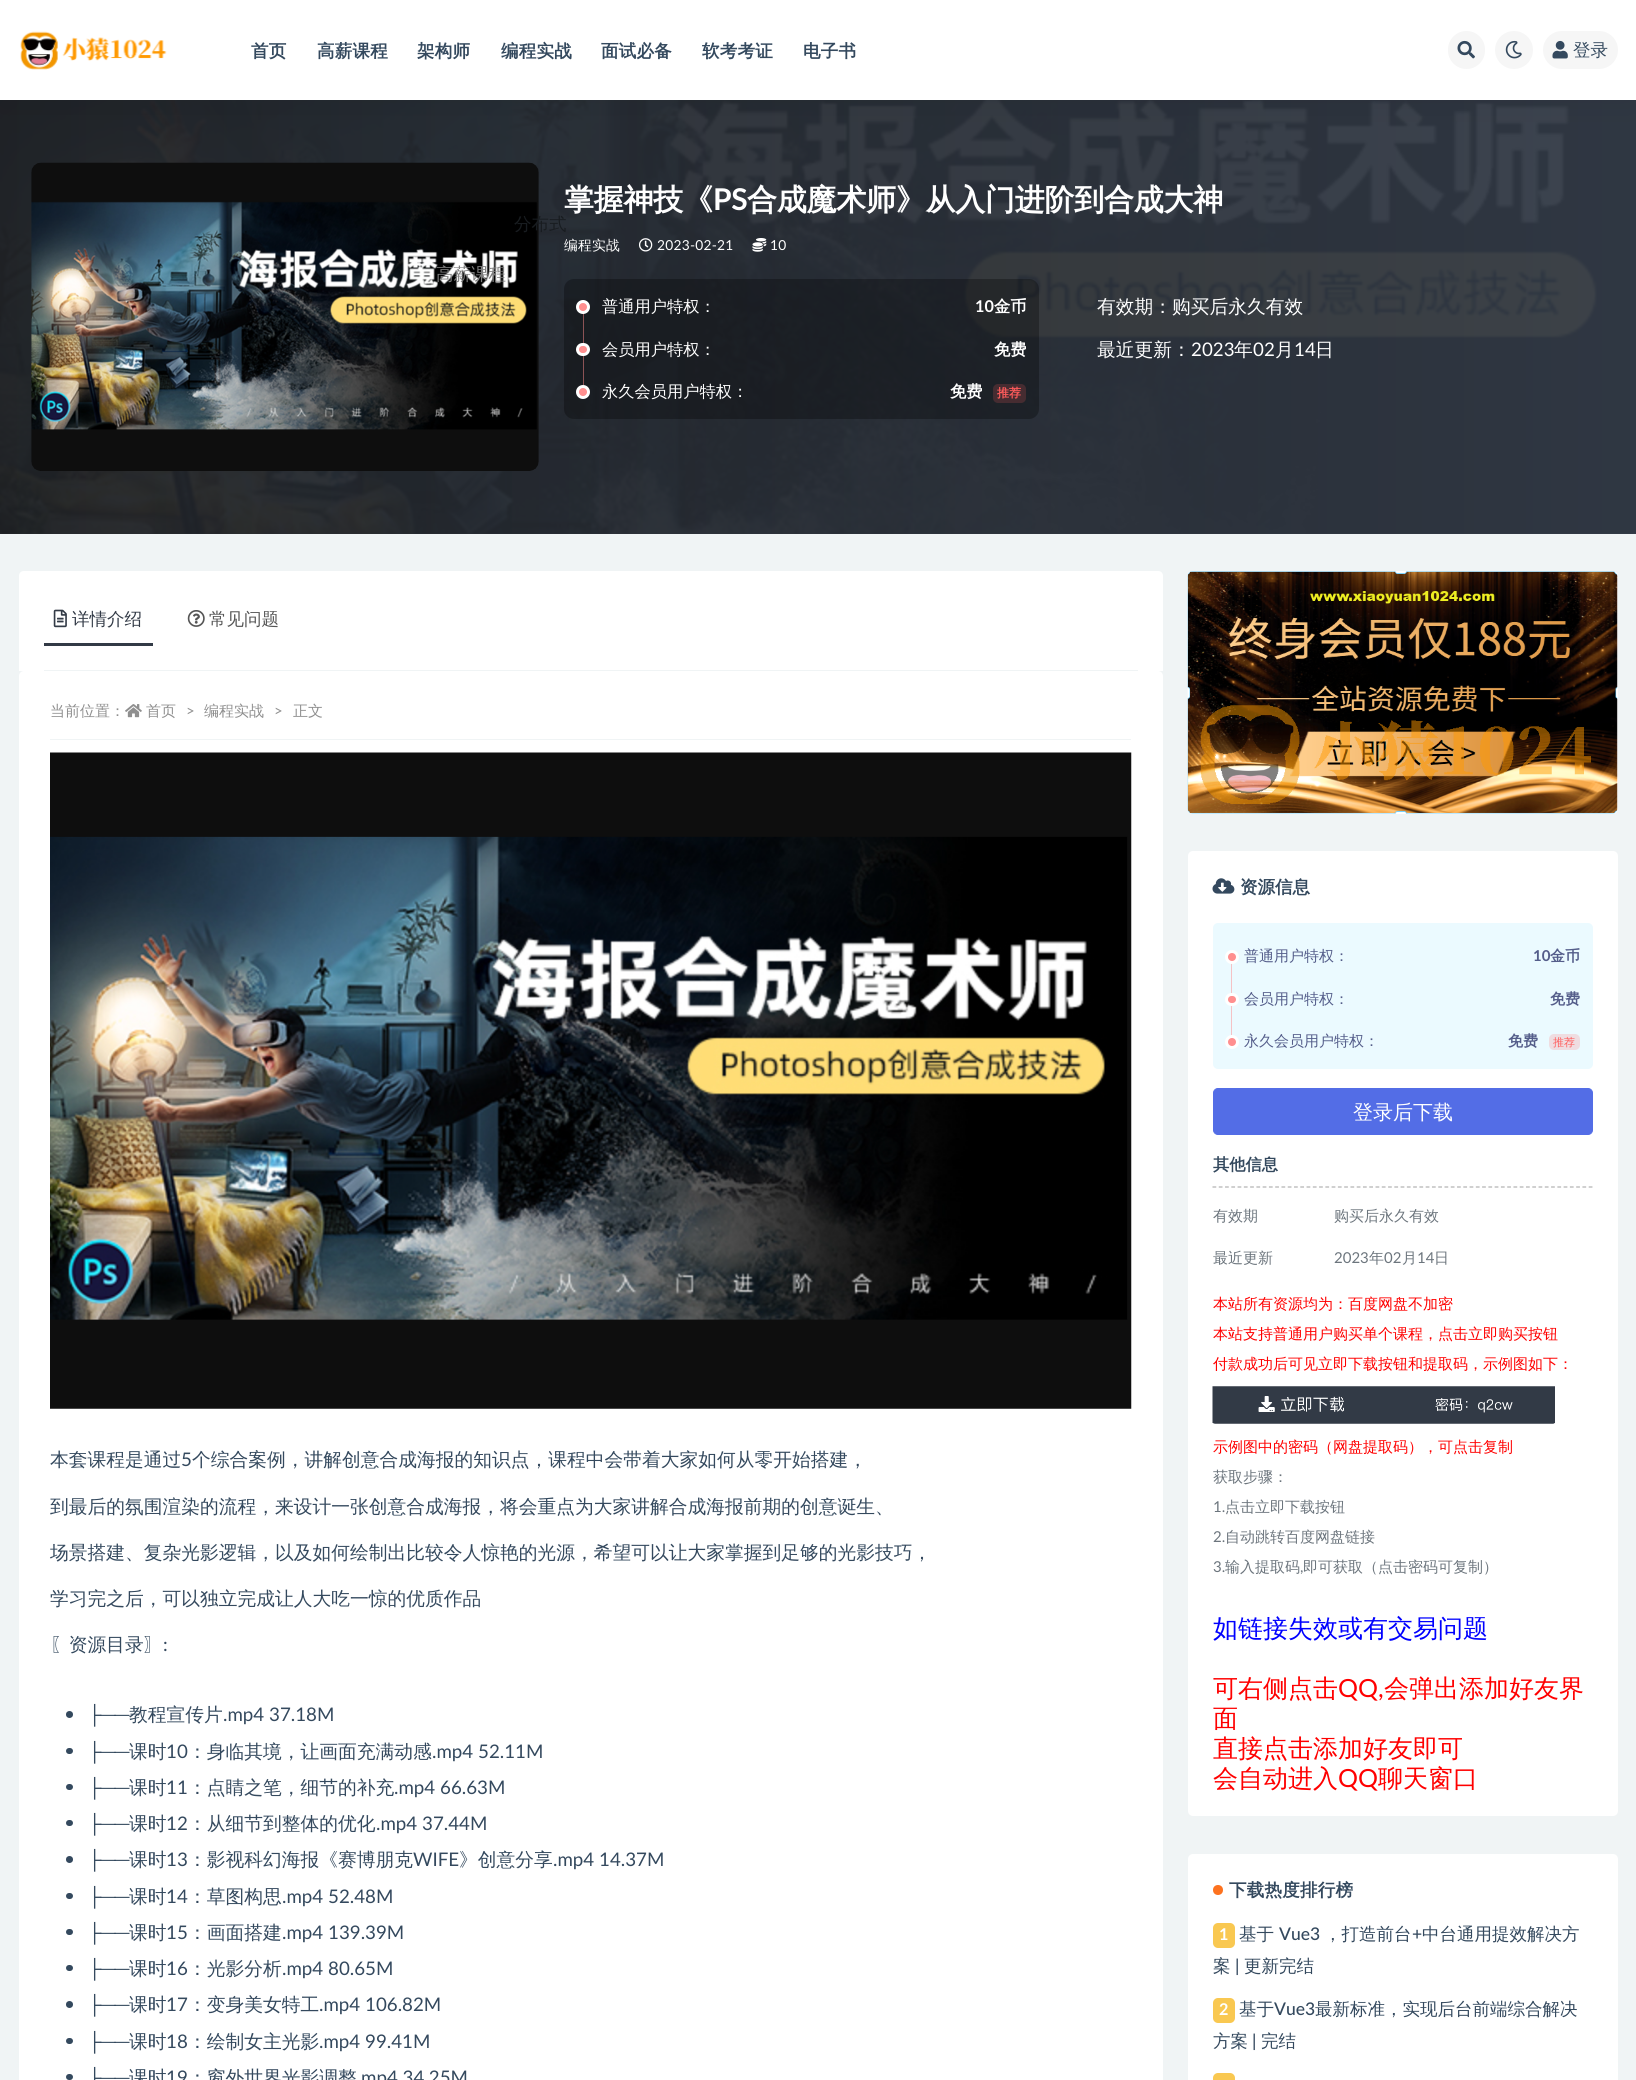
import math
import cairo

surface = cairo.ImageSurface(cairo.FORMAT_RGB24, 1636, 2080)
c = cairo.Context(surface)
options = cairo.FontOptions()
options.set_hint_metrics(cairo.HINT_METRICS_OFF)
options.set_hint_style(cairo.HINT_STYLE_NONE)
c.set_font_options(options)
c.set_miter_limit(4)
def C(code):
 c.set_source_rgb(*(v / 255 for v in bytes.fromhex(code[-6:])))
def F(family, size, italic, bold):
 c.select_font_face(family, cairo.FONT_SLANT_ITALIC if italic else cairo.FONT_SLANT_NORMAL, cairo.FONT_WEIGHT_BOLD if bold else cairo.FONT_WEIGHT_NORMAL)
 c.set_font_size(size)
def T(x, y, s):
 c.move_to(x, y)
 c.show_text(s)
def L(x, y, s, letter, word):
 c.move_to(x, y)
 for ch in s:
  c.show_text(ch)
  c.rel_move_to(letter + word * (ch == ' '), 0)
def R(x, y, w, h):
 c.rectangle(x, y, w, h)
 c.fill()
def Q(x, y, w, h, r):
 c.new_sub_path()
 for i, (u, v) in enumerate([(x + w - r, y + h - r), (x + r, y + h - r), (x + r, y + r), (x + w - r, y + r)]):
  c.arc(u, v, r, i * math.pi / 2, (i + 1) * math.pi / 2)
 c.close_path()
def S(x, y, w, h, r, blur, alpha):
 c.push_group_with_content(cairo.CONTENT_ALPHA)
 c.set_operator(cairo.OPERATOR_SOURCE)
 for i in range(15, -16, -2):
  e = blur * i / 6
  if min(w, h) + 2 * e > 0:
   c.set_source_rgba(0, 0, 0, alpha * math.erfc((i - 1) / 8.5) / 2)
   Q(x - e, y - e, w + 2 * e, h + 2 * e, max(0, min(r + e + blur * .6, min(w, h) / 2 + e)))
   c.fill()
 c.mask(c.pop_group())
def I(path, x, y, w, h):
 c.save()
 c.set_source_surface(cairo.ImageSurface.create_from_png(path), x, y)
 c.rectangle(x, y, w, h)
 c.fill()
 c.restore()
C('f0f4f5')
c.paint()
I('5.png',0,100,1636,434)
gradient = cairo.LinearGradient(0,317,1636,317)
gradient.add_color_stop_rgba(0,0.118,0.129,0.145,.95)
gradient.add_color_stop_rgba(1,0.196,0.227,0.275,.95)
c.set_source(gradient)
R(0,100,1636,434)
C('000000')
S(0,0,1636,100,0,19,.07)
C('ffffff')
R(0,0,1636,100)
I('1.png',20,31,147,39)
F('WenQuanYi Zen Hei',17.5,0,1)
C('34495e')
L(251,57,'首页',.25,0)
L(317,57,'高薪课程',.25,0)
L(417,57,'架构师',.25,0)
L(501,57,'编程实战',.25,0)
L(601,57,'面试必备',.25,0)
L(702,57,'软考考证',.25,0)
L(803,57,'电子书',.25,0)
C('f6f6f6')
Q(1448,31,37,38,18.5)
c.fill()
I('2.png',1457,40,18,19)
c.arc(1514,50,19,0,2 * math.pi)
c.fill()
I('3.png',1505,40,17,19)
Q(1543,31,75,38,19)
c.fill()
I('4.png',1552,40,16,19)
F('WenQuanYi Zen Hei Medium',17.5,0,0)
C('34495e')
T(1573,56,'登录')
I('6.png',31,162,508,309)
F('WenQuanYi Zen Hei',30,0,1)
C('ffffff')
L(564,210,'掌握神技《',-.25,0)
F('Lato',30,0,1)
L(713,210,'PS',-.25,0)
F('WenQuanYi Zen Hei',30,0,1)
L(747,210,'合成魔术师》从入门进阶到合成大神',-.25,0)
F('WenQuanYi Zen Hei Medium',13.75,0,0)
L(564,250,'编程实战',.25,0)
I('7.png',639,238,14,14)
F('Lato',13.75,0,0)
L(657,250,'2023-02-21',.25,0)
I('8.png',752,238,15,14)
L(770,250,'10',.25,0)
c.set_source_rgba(0,0,0,0.3)
Q(564,279,475,140,10)
c.fill()
C('8c5355')
R(583,300,1,85)
C('ff8f8f')
c.arc(583,307,5.5,0,2 * math.pi)
c.fill_preserve()
C('ffffff')
c.set_line_width(3)
c.stroke()
F('WenQuanYi Zen Hei Medium',16.25,0,0)
T(602,312,'普通用户特权：')
F('Lato',16.25,0,1)
T(975,312,'10')
F('WenQuanYi Zen Hei',16.25,0,1)
T(994,312,'金币')
C('ff8f8f')
Q(577.5,344.5,11,10,5)
c.fill_preserve()
C('ffffff')
c.stroke()
F('WenQuanYi Zen Hei Medium',16.25,0,0)
T(602,355,'会员用户特权：')
F('WenQuanYi Zen Hei',16.25,0,1)
T(994,355,'免费')
C('ff8f8f')
c.new_path()
c.arc(583,392,5.5,0,2 * math.pi)
c.fill_preserve()
C('ffffff')
c.stroke()
F('WenQuanYi Zen Hei Medium',16.25,0,0)
T(602,397,'永久会员用户特权：')
F('WenQuanYi Zen Hei',16.25,0,1)
T(950,397,'免费')
C('462c31')
Q(993,384,33,19,5)
c.fill()
F('WenQuanYi Zen Hei',12,0,1)
C('ff5b5b')
T(997,397,'推荐')
F('WenQuanYi Zen Hei Medium',18.75,0,0)
C('ffffff')
T(1097,313,'有效期：购买后永久有效')
T(1097,356,'最近更新：')
F('Lato',18.75,0,0)
T(1191,356,'2023')
F('WenQuanYi Zen Hei Medium',18.75,0,0)
T(1234,356,'年')
F('Lato',18.75,0,0)
T(1253,356,'02')
F('WenQuanYi Zen Hei Medium',18.75,0,0)
T(1275,356,'月')
F('Lato',18.75,0,0)
T(1294,356,'14')
F('WenQuanYi Zen Hei Medium',18.75,0,0)
T(1315,356,'日')
c.new_path()
c.move_to(24,571)
c.line_to(1158,571)
c.curve_to(1161,571,1163,573,1163,576)
c.line_to(1163,671)
c.line_to(19,671)
c.line_to(19,576)
c.curve_to(19,573,21,571,24,571)
c.close_path()
c.fill()
C('f0f4f5')
R(44,670,1094,1)
C('323a46')
R(44,643,109,3)
I('9.png',53,609,14,19)
F('WenQuanYi Zen Hei Medium',17.5,0,0)
T(72,625,'详情介绍')
I('10.png',187,610,18,17)
C('555555')
T(209,625,'常见问题')
C('ffffff')
Q(19,671,1144,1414,5)
c.fill()
C('f0f4f5')
R(50,739,1081,1)
F('WenQuanYi Zen Hei Medium',15,0,0)
C('8f8f8f')
T(50,716,'当前位置：')
I('11.png',125,704,17,14)
T(146,716,'首页')
F('Lato',15,0,0)
T(186,716,'>')
F('WenQuanYi Zen Hei Medium',15,0,0)
T(204,716,'编程实战')
F('Lato',15,0,0)
T(274,716,'>')
F('WenQuanYi Zen Hei Medium',15,0,0)
T(293,716,'正文')
I('12.png',50,752,1082,657)
F('WenQuanYi Zen Hei Medium',18.75,0,0)
C('34495e')
T(50,1466,'本套课程是通过')
F('Lato',18.75,0,0)
T(181,1466,'5')
F('WenQuanYi Zen Hei Medium',18.75,0,0)
T(192,1466,'个综合案例，讲解创意合成海报的知识点，课程中会带着大家如何从零开始搭建，')
T(50,1513,'到最后的氛围渲染的流程，来设计一张创意合成海报，将会重点为大家讲解合成海报前期的创意诞生、')
T(50,1559,'场景搭建、复杂光影逻辑，以及如何绘制出比较令人惊艳的光源，希望可以让大家掌握到足够的光影技巧，')
T(50,1605,'学习完之后，可以独立完成让人大吃一惊的优质作品')
T(50,1651,'〖资源目录〗')
F('Lato',18.75,0,0)
T(163,1651,':')
c.new_path()
c.arc(69.5,1714.5,3.5,0,2 * math.pi)
c.fill()
F('Liberation Sans',18.75,0,0)
T(88,1721,'├')
F('Lato',18.75,0,0)
T(101,1721,'──')
F('WenQuanYi Zen Hei Medium',18.75,0,0)
T(129,1721,'教程宣传片')
F('Lato',18.75,0,0)
T(223,1721,'.mp4 37.18M')
Q(66,1748,7,6,3)
c.fill()
F('Liberation Sans',18.75,0,0)
T(88,1758,'├')
F('Lato',18.75,0,0)
T(101,1758,'──')
F('WenQuanYi Zen Hei Medium',18.75,0,0)
T(129,1758,'课时')
F('Lato',18.75,0,0)
T(166,1758,'10')
F('WenQuanYi Zen Hei Medium',18.75,0,0)
T(188,1758,'：身临其境，让画面充满动感')
F('Lato',18.75,0,0)
T(432,1758,'.mp4 52.11M')
Q(66,1784,7,6,3)
c.fill()
F('Liberation Sans',18.75,0,0)
T(88,1794,'├')
F('Lato',18.75,0,0)
T(101,1794,'──')
F('WenQuanYi Zen Hei Medium',18.75,0,0)
T(129,1794,'课时')
F('Lato',18.75,0,0)
T(166,1794,'11')
F('WenQuanYi Zen Hei Medium',18.75,0,0)
T(188,1794,'：点睛之笔，细节的补充')
F('Lato',18.75,0,0)
T(394,1794,'.mp4 66.63M')
Q(66,1820,7,6,3)
c.fill()
F('Liberation Sans',18.75,0,0)
T(88,1830,'├')
F('Lato',18.75,0,0)
T(101,1830,'──')
F('WenQuanYi Zen Hei Medium',18.75,0,0)
T(129,1830,'课时')
F('Lato',18.75,0,0)
T(166,1830,'12')
F('WenQuanYi Zen Hei Medium',18.75,0,0)
T(188,1830,'：从细节到整体的优化')
F('Lato',18.75,0,0)
T(376,1830,'.mp4 37.44M')
c.new_path()
c.arc(69.5,1859.5,3.5,0,2 * math.pi)
c.fill()
F('Liberation Sans',18.75,0,0)
T(88,1866,'├')
F('Lato',18.75,0,0)
T(101,1866,'──')
F('WenQuanYi Zen Hei Medium',18.75,0,0)
T(129,1866,'课时')
F('Lato',18.75,0,0)
T(166,1866,'13')
F('WenQuanYi Zen Hei Medium',18.75,0,0)
T(188,1866,'：影视科幻海报《赛博朋克')
F('Lato',18.75,0,0)
T(413,1866,'WIFE')
F('WenQuanYi Zen Hei Medium',18.75,0,0)
T(459,1866,'》创意分享')
F('Lato',18.75,0,0)
T(553,1866,'.mp4 14.37M')
Q(66,1893,7,6,3)
c.fill()
F('Liberation Sans',18.75,0,0)
T(88,1903,'├')
F('Lato',18.75,0,0)
T(101,1903,'──')
F('WenQuanYi Zen Hei Medium',18.75,0,0)
T(129,1903,'课时')
F('Lato',18.75,0,0)
T(166,1903,'14')
F('WenQuanYi Zen Hei Medium',18.75,0,0)
T(188,1903,'：草图构思')
F('Lato',18.75,0,0)
T(282,1903,'.mp4 52.48M')
Q(66,1929,7,6,3)
c.fill()
F('Liberation Sans',18.75,0,0)
T(88,1939,'├')
F('Lato',18.75,0,0)
T(101,1939,'──')
F('WenQuanYi Zen Hei Medium',18.75,0,0)
T(129,1939,'课时')
F('Lato',18.75,0,0)
T(166,1939,'15')
F('WenQuanYi Zen Hei Medium',18.75,0,0)
T(188,1939,'：画面搭建')
F('Lato',18.75,0,0)
T(282,1939,'.mp4 139.39M')
Q(66,1965,7,6,3)
c.fill()
F('Liberation Sans',18.75,0,0)
T(88,1975,'├')
F('Lato',18.75,0,0)
T(101,1975,'──')
F('WenQuanYi Zen Hei Medium',18.75,0,0)
T(129,1975,'课时')
F('Lato',18.75,0,0)
T(166,1975,'16')
F('WenQuanYi Zen Hei Medium',18.75,0,0)
T(188,1975,'：光影分析')
F('Lato',18.75,0,0)
T(282,1975,'.mp4 80.65M')
c.new_path()
c.arc(69.5,2004.5,3.5,0,2 * math.pi)
c.fill()
F('Liberation Sans',18.75,0,0)
T(88,2011,'├')
F('Lato',18.75,0,0)
T(101,2011,'──')
F('WenQuanYi Zen Hei Medium',18.75,0,0)
T(129,2011,'课时')
F('Lato',18.75,0,0)
T(166,2011,'17')
F('WenQuanYi Zen Hei Medium',18.75,0,0)
T(188,2011,'：变身美女特工')
F('Lato',18.75,0,0)
T(319,2011,'.mp4 106.82M')
Q(66,2038,7,6,3)
c.fill()
F('Liberation Sans',18.75,0,0)
T(88,2048,'├')
F('Lato',18.75,0,0)
T(101,2048,'──')
F('WenQuanYi Zen Hei Medium',18.75,0,0)
T(129,2048,'课时')
F('Lato',18.75,0,0)
T(166,2048,'18')
F('WenQuanYi Zen Hei Medium',18.75,0,0)
T(188,2048,'：绘制女主光影')
F('Lato',18.75,0,0)
T(319,2048,'.mp4 99.41M')
Q(66,2074,7,6,3)
c.fill()
F('Liberation Sans',18.75,0,0)
T(88,2084,'├')
F('Lato',18.75,0,0)
T(101,2084,'──')
F('WenQuanYi Zen Hei Medium',18.75,0,0)
T(129,2084,'课时')
F('Lato',18.75,0,0)
T(166,2084,'19')
F('WenQuanYi Zen Hei Medium',18.75,0,0)
T(188,2084,'：窗外世界光影调整')
F('Lato',18.75,0,0)
T(361,2084,'mp4 34.25M')
C('ffffff')
Q(1188,571,430,243,5)
c.fill()
I('13.png',1187,571,431,243)
Q(1188,851,430,965,5)
c.fill()
I('14.png',1212,878,23,16)
F('WenQuanYi Zen Hei',17.5,0,1)
C('34495e')
T(1240,893,'资源信息')
C('ebfaff')
Q(1213,923,380,146,5)
c.fill()
C('f5c2c5')
R(1231,950,1,85)
C('ff8f8f')
c.arc(1232,957,5.5,0,2 * math.pi)
c.fill_preserve()
C('ffffff')
c.stroke()
F('WenQuanYi Zen Hei Medium',15,0,0)
C('545d8a')
T(1244,961,'普通用户特权：')
F('Lato',15,0,1)
T(1533,961,'10')
F('WenQuanYi Zen Hei',15,0,1)
T(1550,961,'金币')
C('ff8f8f')
Q(1226.5,994.5,11,10,5)
c.fill_preserve()
C('ffffff')
c.stroke()
F('WenQuanYi Zen Hei Medium',15,0,0)
C('545d8a')
T(1244,1004,'会员用户特权：')
F('WenQuanYi Zen Hei',15,0,1)
T(1550,1004,'免费')
C('ff8f8f')
c.new_path()
c.arc(1232,1042,5.5,0,2 * math.pi)
c.fill_preserve()
C('ffffff')
c.stroke()
F('WenQuanYi Zen Hei Medium',15,0,0)
C('545d8a')
T(1244,1046,'永久会员用户特权：')
F('WenQuanYi Zen Hei',15,0,1)
T(1508,1046,'免费')
C('efdde1')
Q(1549,1034,31,16,5)
c.fill()
F('WenQuanYi Zen Hei Medium',11,0,0)
C('ff5b5b')
T(1553,1046,'推荐')
C('536de6')
Q(1213.5,1088.5,379,46,4.5)
c.fill_preserve()
c.set_line_width(1)
c.stroke()
F('WenQuanYi Zen Hei Medium',20,0,0)
C('ffffff')
T(1353,1119,'登录后下载')
c.new_path()
c.move_to(1212.5,1187)
c.line_to(1592.5,1187)
C('b1b1b1')
c.set_line_width(1.2)
c.set_dash([3.75,2.52])
c.stroke()
F('WenQuanYi Zen Hei',16.25,0,1)
C('34495e')
T(1213,1170,'其他信息')
F('WenQuanYi Zen Hei Medium',15,0,0)
C('6c757d')
T(1213,1221,'有效期')
T(1334,1221,'购买后永久有效')
T(1213,1263,'最近更新')
F('Lato',15,0,0)
T(1334,1263,'2023')
F('WenQuanYi Zen Hei Medium',15,0,0)
T(1369,1263,'年')
F('Lato',15,0,0)
T(1384,1263,'02')
F('WenQuanYi Zen Hei Medium',15,0,0)
T(1402,1263,'月')
F('Lato',15,0,0)
T(1417,1263,'14')
F('WenQuanYi Zen Hei Medium',15,0,0)
T(1434,1263,'日')
C('ff0000')
T(1213,1309,'本站所有资源均为：百度网盘不加密')
T(1213,1339,'本站支持普通用户购买单个课程，点击立即购买按钮')
T(1213,1369,'付款成功后可见立即下载按钮和提取码，示例图如下：')
I('15.png',1212,1386,343,38)
T(1213,1452,'示例图中的密码（网盘提取码），可点击复制')
C('6c757d')
T(1213,1482,'获取步骤：')
F('Lato',15,0,0)
T(1213,1512,'1.')
F('WenQuanYi Zen Hei Medium',15,0,0)
T(1225,1512,'点击立即下载按钮')
F('Lato',15,0,0)
T(1213,1542,'2.')
F('WenQuanYi Zen Hei Medium',15,0,0)
T(1225,1542,'自动跳转百度网盘链接')
F('Lato',15,0,0)
T(1213,1572,'3.')
F('WenQuanYi Zen Hei Medium',15,0,0)
T(1225,1572,'输入提取码')
F('Lato',15,0,0)
T(1300,1572,',')
F('WenQuanYi Zen Hei Medium',15,0,0)
T(1303,1572,'即可获取（点击密码可复制）')
F('WenQuanYi Zen Hei Medium',25,0,0)
C('0000ff')
T(1213,1637,'如链接失效或有交易问题')
C('ff0000')
T(1213,1697,'可右侧点击')
F('Lato',25,0,0)
T(1338,1697,'QQ,')
F('WenQuanYi Zen Hei Medium',25,0,0)
T(1384,1697,'会弹出添加好友界')
T(1213,1727,'面')
T(1213,1757,'直接点击添加好友即可')
T(1213,1787,'会自动进入')
F('Lato',25,0,0)
T(1338,1787,'QQ')
F('WenQuanYi Zen Hei Medium',25,0,0)
T(1378,1787,'聊天窗口')
C('ffffff')
Q(1188,1854,430,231,5)
c.fill()
C('fd721f')
c.arc(1218,1890,5,0,2 * math.pi)
c.fill()
F('WenQuanYi Zen Hei',17.5,0,1)
C('34495e')
L(1229,1896,'下载热度排行榜',.25,0)
C('f9c851')
Q(1213,1923,22,25,5)
c.fill()
F('Lato',16.25,0,1)
C('ffffff')
T(1219,1940,'1')
F('WenQuanYi Zen Hei Medium',17.5,0,0)
C('34495e')
T(1239,1940,'基于')
F('Lato Medium',17.5,0,0)
T(1279,1940,'Vue3')
F('WenQuanYi Zen Hei Medium',17.5,0,0)
T(1324,1940,'，打造前台')
F('Lato Medium',17.5,0,0)
T(1412,1940,'+')
F('WenQuanYi Zen Hei Medium',17.5,0,0)
T(1422,1940,'中台通用提效解决方')
T(1213,1972,'案')
F('Lato Medium',17.5,0,0)
T(1235,1972,'|')
F('WenQuanYi Zen Hei Medium',17.5,0,0)
T(1244,1972,'更新完结')
C('f9c851')
Q(1213,1998,22,25,5)
c.fill()
F('Lato',16.25,0,1)
C('ffffff')
T(1219,2015,'2')
F('WenQuanYi Zen Hei Medium',17.5,0,0)
C('34495e')
T(1239,2015,'基于')
F('Lato Medium',17.5,0,0)
T(1274,2015,'Vue3')
F('WenQuanYi Zen Hei Medium',17.5,0,0)
T(1315,2015,'最新标准，实现后台前端综合解决')
T(1213,2047,'方案')
F('Lato Medium',17.5,0,0)
T(1252,2047,'|')
F('WenQuanYi Zen Hei Medium',17.5,0,0)
T(1261,2047,'完结')
C('f9c851')
Q(1213,2073,22,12,5)
c.fill()
C('181c20')
T(514,230,'分布式')
C('7e7e7e')
T(436,280,'高薪课程')
surface.write_to_png('o.png')
